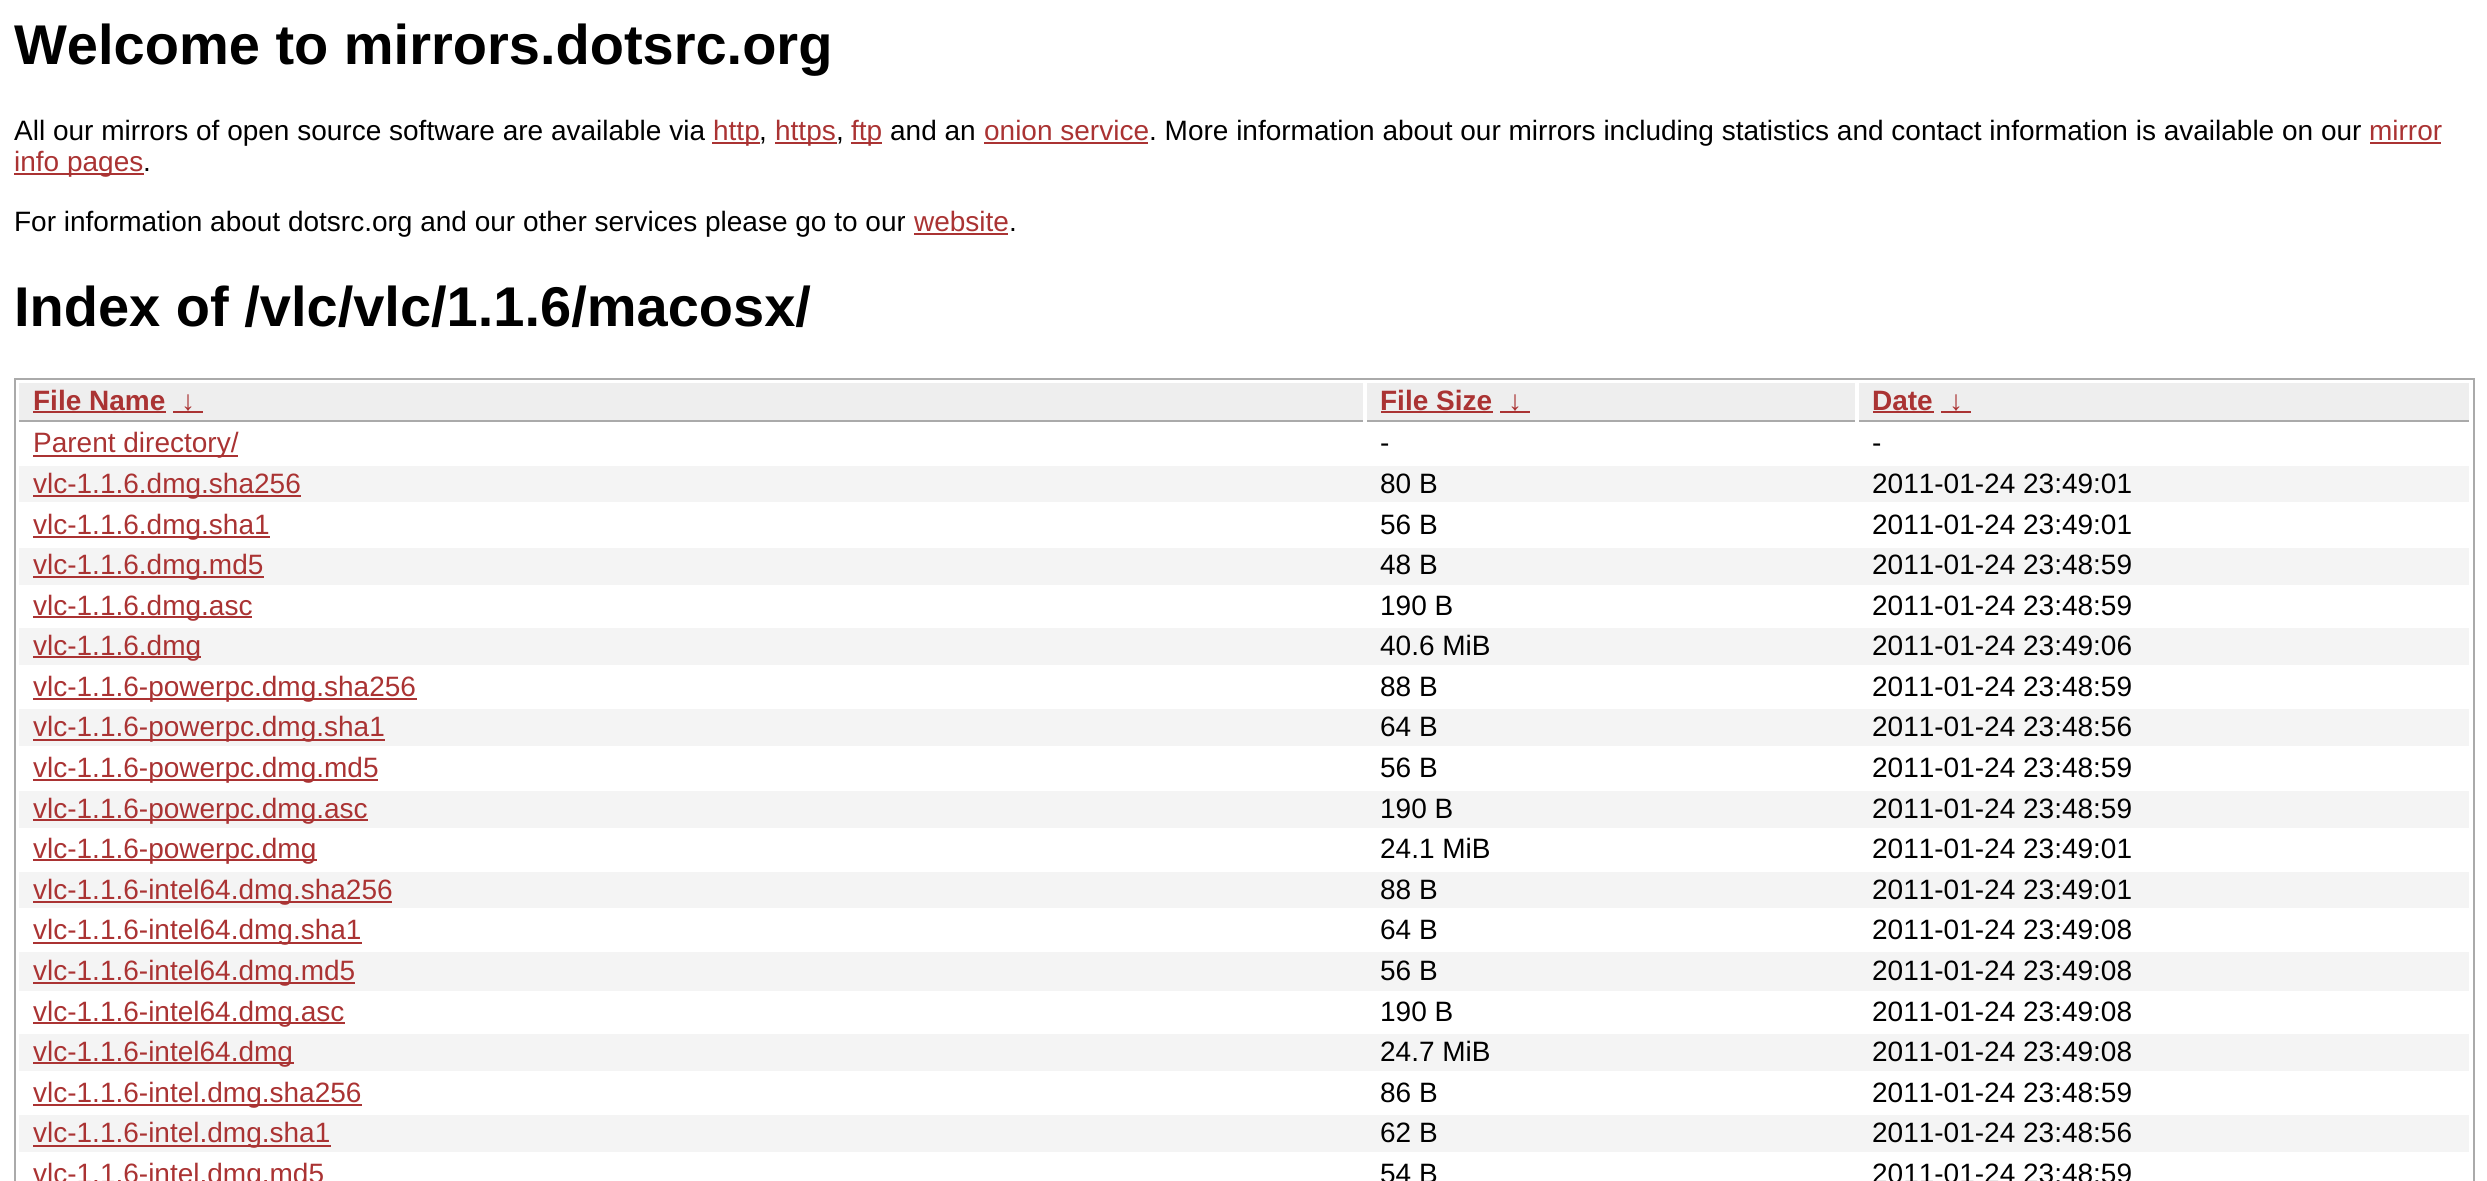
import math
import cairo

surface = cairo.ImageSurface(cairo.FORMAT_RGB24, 2487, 1181)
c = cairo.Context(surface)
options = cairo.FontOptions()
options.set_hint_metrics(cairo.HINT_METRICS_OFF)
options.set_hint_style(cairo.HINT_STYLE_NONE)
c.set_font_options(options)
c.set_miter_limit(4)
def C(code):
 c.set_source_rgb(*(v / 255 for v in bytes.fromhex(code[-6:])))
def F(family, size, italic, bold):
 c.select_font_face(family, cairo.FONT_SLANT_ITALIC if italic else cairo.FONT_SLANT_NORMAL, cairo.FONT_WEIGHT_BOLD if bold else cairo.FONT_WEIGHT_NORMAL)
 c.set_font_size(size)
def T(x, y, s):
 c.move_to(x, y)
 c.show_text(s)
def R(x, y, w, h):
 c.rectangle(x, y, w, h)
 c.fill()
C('ffffff')
c.paint()
F('Liberation Sans',56,0,1)
C('000000')
T(14,64,'Welcome to mirrors.dotsrc.org')
F('Liberation Sans',28,0,0)
T(14,140,'All our mirrors of open source software are available via')
C('aa3333')
R(712,142,48,2)
T(713,140,'http')
C('000000')
T(759,140,',')
C('aa3333')
R(775,142,62,2)
T(775,140,'https')
C('000000')
T(836,140,',')
C('aa3333')
R(851,142,31,2)
T(851,140,'ftp')
C('000000')
T(890,140,'and an')
C('aa3333')
T(984,140,'onion service')
R(984,142,164,2)
C('000000')
T(1149,140,'. More information about our mirrors including statistics and contact information is available on our')
C('aa3333')
T(2369,140,'mirror')
R(2370,142,71,2)
R(14,173,130,2)
T(14,171,'info pages')
C('000000')
T(143,171,'.')
T(14,231,'For information about dotsrc.org and our other services please go to our')
C('aa3333')
T(914,231,'website')
R(914,233,94,2)
C('000000')
T(1009,231,'.')
F('Liberation Sans',56,0,1)
T(14,326,'Index of /vlc/vlc/1.1.6/macosx/')
c.rectangle(15,379,2459,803)
C('aaaaaa')
c.stroke()
C('eeeeee')
R(19,383,1344,37)
C('aaaaaa')
R(19,420,1344,2)
F('Liberation Sans',28,0,1)
C('aa3333')
T(33,410,'File Name')
R(33,411,133,2)
T(181,410,'↓')
R(173,411,30,2)
C('eeeeee')
R(1367,383,488,37)
C('aaaaaa')
R(1367,420,488,2)
C('aa3333')
T(1380,410,'File Size')
R(1381,411,112,2)
T(1508,410,'↓')
R(1500,411,30,2)
C('eeeeee')
R(1859,383,610,37)
C('aaaaaa')
R(1859,420,610,2)
C('aa3333')
T(1872,410,'Date')
R(1873,411,61,2)
T(1949,410,'↓')
R(1941,411,30,2)
R(33,455,205,2)
F('Liberation Sans',28,0,0)
T(33,452,'Parent directory/')
C('000000')
T(1380,452,'-')
T(1872,452,'-')
C('f4f4f4')
R(19,466,2450,36)
C('aa3333')
R(33,495,268,2)
T(33,493,'vlc-1.1.6.dmg.sha256')
C('000000')
T(1380,493,'80 B')
T(1872,493,'2011-01-24 23:49:01')
C('aa3333')
R(33,536,237,2)
T(33,534,'vlc-1.1.6.dmg.sha1')
C('000000')
T(1380,534,'56 B')
T(1872,534,'2011-01-24 23:49:01')
C('f4f4f4')
R(19,548,2450,37)
C('aa3333')
R(33,576,231,2)
T(33,574,'vlc-1.1.6.dmg.md5')
C('000000')
T(1380,574,'48 B')
T(1872,574,'2011-01-24 23:48:59')
C('aa3333')
R(33,616,219,2)
T(33,615,'vlc-1.1.6.dmg.asc')
C('000000')
T(1380,615,'190 B')
T(1872,615,'2011-01-24 23:48:59')
C('f4f4f4')
R(19,628,2450,37)
C('aa3333')
R(33,656,168,2)
T(33,655,'vlc-1.1.6.dmg')
C('000000')
T(1380,655,'40.6 MiB')
T(1872,655,'2011-01-24 23:49:06')
C('aa3333')
R(33,698,384,2)
T(33,696,'vlc-1.1.6-powerpc.dmg.sha256')
C('000000')
T(1380,696,'88 B')
T(1872,696,'2011-01-24 23:48:59')
C('f4f4f4')
R(19,709,2450,37)
C('aa3333')
R(33,739,352,2)
T(33,736,'vlc-1.1.6-powerpc.dmg.sha1')
C('000000')
T(1380,736,'64 B')
T(1872,736,'2011-01-24 23:48:56')
C('aa3333')
R(33,779,345,2)
T(33,777,'vlc-1.1.6-powerpc.dmg.md5')
C('000000')
T(1380,777,'56 B')
T(1872,777,'2011-01-24 23:48:59')
C('f4f4f4')
R(19,791,2450,37)
C('aa3333')
R(33,819,335,2)
T(33,818,'vlc-1.1.6-powerpc.dmg.asc')
C('000000')
T(1380,818,'190 B')
T(1872,818,'2011-01-24 23:48:59')
C('aa3333')
R(33,859,284,2)
T(33,858,'vlc-1.1.6-powerpc.dmg')
C('000000')
T(1380,858,'24.1 MiB')
T(1872,858,'2011-01-24 23:49:01')
C('f4f4f4')
R(19,872,2450,36)
C('aa3333')
R(33,901,359,2)
T(33,899,'vlc-1.1.6-intel64.dmg.sha256')
C('000000')
T(1380,899,'88 B')
T(1872,899,'2011-01-24 23:49:01')
C('aa3333')
R(33,942,329,2)
T(33,939,'vlc-1.1.6-intel64.dmg.sha1')
C('000000')
T(1380,939,'64 B')
T(1872,939,'2011-01-24 23:49:08')
C('f4f4f4')
R(19,952,2450,39)
C('aa3333')
R(33,982,322,2)
T(33,980,'vlc-1.1.6-intel64.dmg.md5')
C('000000')
T(1380,980,'56 B')
T(1872,980,'2011-01-24 23:49:08')
C('aa3333')
R(33,1022,312,2)
T(33,1021,'vlc-1.1.6-intel64.dmg.asc')
C('000000')
T(1380,1021,'190 B')
T(1872,1021,'2011-01-24 23:49:08')
C('f4f4f4')
R(19,1034,2450,37)
C('aa3333')
R(33,1062,261,2)
T(33,1061,'vlc-1.1.6-intel64.dmg')
C('000000')
T(1380,1061,'24.7 MiB')
T(1872,1061,'2011-01-24 23:49:08')
C('aa3333')
R(33,1104,329,2)
T(33,1102,'vlc-1.1.6-intel.dmg.sha256')
C('000000')
T(1380,1102,'86 B')
T(1872,1102,'2011-01-24 23:48:59')
C('f4f4f4')
R(19,1115,2450,37)
C('aa3333')
R(33,1145,298,2)
T(33,1142,'vlc-1.1.6-intel.dmg.sha1')
C('000000')
T(1380,1142,'62 B')
T(1872,1142,'2011-01-24 23:48:56')
C('aa3333')
T(33,1183,'vlc-1.1.6-intel.dmg.md5')
C('000000')
T(1380,1183,'54 B')
T(1872,1183,'2011-01-24 23:48:59')
surface.write_to_png('o.png')
